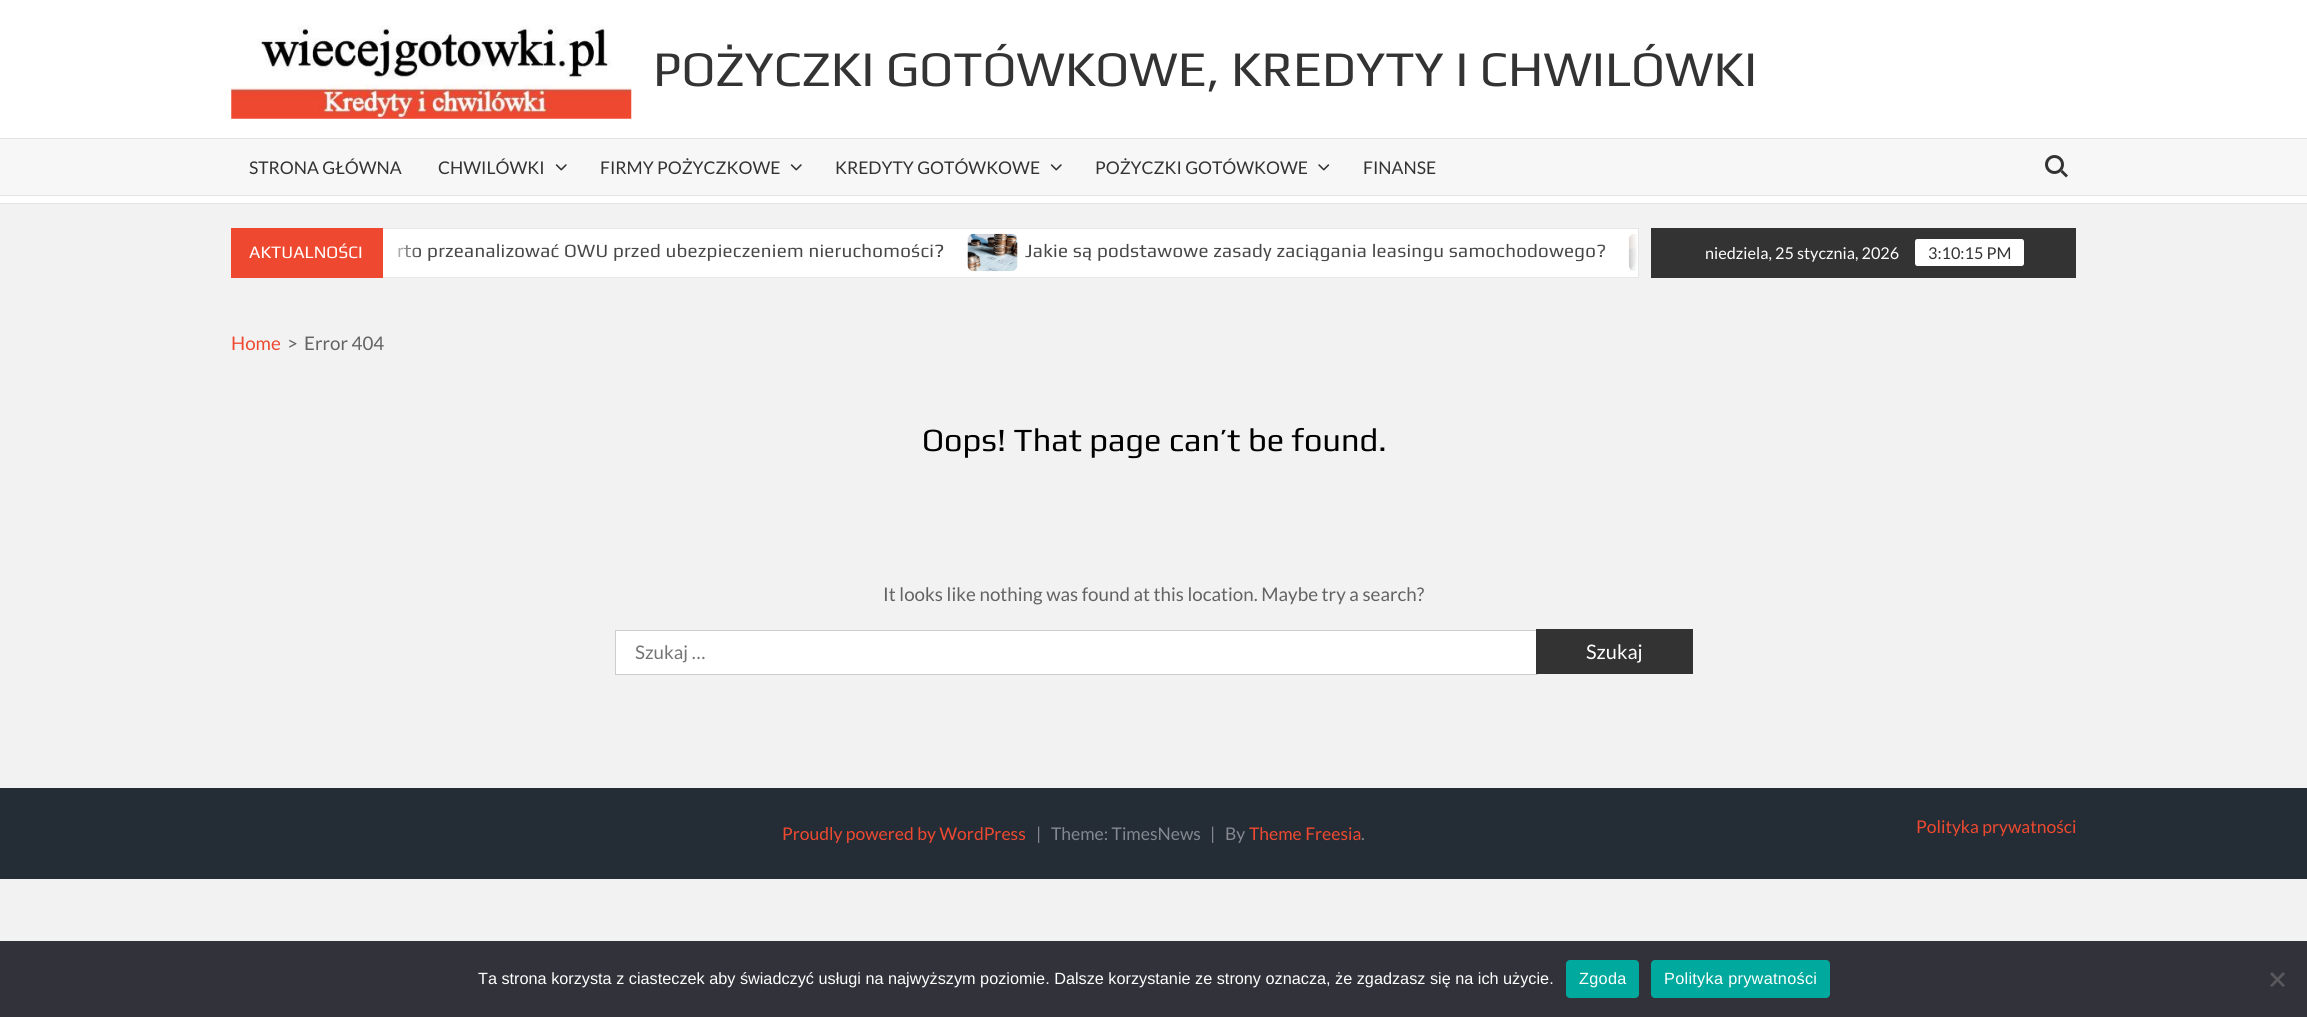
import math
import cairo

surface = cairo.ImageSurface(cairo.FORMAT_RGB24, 2307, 1017)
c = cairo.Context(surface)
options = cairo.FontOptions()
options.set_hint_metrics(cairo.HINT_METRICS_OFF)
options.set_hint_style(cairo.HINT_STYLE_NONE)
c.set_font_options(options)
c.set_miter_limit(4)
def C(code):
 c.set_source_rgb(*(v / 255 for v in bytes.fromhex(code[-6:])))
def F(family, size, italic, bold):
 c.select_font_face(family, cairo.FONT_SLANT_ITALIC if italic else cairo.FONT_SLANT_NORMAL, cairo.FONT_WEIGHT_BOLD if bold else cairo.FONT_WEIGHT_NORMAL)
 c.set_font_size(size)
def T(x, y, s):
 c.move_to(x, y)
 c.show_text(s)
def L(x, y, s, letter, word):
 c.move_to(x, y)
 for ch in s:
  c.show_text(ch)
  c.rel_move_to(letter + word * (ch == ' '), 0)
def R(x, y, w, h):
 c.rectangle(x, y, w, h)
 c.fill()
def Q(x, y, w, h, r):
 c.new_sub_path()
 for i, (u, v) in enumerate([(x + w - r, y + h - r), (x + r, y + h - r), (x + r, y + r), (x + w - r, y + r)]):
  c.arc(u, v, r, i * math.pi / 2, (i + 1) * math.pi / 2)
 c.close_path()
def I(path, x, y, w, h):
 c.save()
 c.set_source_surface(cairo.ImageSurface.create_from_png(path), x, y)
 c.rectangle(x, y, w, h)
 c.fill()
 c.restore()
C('f2f2f2')
c.paint()
C('ffffff')
R(0,0,2307,138)
I('1.png',231,25,401,94)
F('Play',50,0,0)
C('333333')
T(653,86,'POŻYCZKI GOTÓWKOWE, KREDYTY I CHWILÓWKI')
C('e4e4e4')
c.new_path()
c.move_to(0,202)
c.line_to(0,204)
c.line_to(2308,204)
c.line_to(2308,139)
c.line_to(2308,202)
c.close_path()
c.fill()
C('f7f7f7')
R(0,139,2307,56)
C('ffffff')
R(0,196,2307,7)
C('e4e4e4')
R(0,138,2307,1)
R(0,195,2307,1)
F('Lato',17.5,0,0)
C('333333')
T(249,174,'STRONA GŁÓWNA')
T(438,174,'CHWILÓWKI')
I('2.png',555,164,12,7)
T(600,174,'FIRMY POŻYCZKOWE')
I('2.png',790,164,12,7)
T(835,174,'KREDYTY GOTÓWKOWE')
I('2.png',1050,164,12,7)
T(1095,174,'POŻYCZKI GOTÓWKOWE')
I('3.png',1318,164,12,7)
T(1363,174,'FINANSE')
c.new_path()
c.arc(2054.5,164.5,8,0,2 * math.pi)
c.set_line_width(3)
c.stroke()
c.new_path()
c.move_to(2062.5,170)
c.line_to(2068,175.5)
c.line_to(2066,177.5)
c.line_to(2060.5,172)
c.close_path()
c.fill()
C('ffffff')
R(383,229,1255,48)
c.rectangle(231.5,228.5,1407,49)
C('e7e7e7')
c.set_line_width(1)
c.stroke()
C('ee4930')
R(231,228,152,50)
F('Play',17.5,0,0)
C('ffffff')
T(249,258,'AKTUALNOŚCI')
F('Play',18.75,0,0)
C('474747')
L(397,257,'rto przeanalizować OWU przed ubezpieczeniem nieruchomości?',.25,0)
gradient = cairo.LinearGradient(383,253,420,253)
gradient.add_color_stop_rgba(0,1,1,1,1)
gradient.add_color_stop_rgba(1,1,1,1,0)
c.set_source(gradient)
R(398,245,21,13)
I('4.png',967,233,51,39)
C('474747')
L(1025,257,'Jakie są podstawowe zasady zaciągania leasingu samochodowego?',.25,0)
I('5.png',1628,233,10,39)
gradient = cairo.LinearGradient(1600,253,1638,253)
gradient.add_color_stop_rgba(0,1,1,1,0)
gradient.add_color_stop_rgba(1,1,1,1,1)
c.set_source(gradient)
R(1601,233,37,39)
C('333333')
R(1651,228,425,50)
F('Lato',16.25,0,0)
C('ffffff')
T(1705,259,'niedziela, 25 stycznia, 2026')
Q(1915,239,109,27,2.5)
c.fill()
C('333333')
T(1928,259,'3:10:15 PM')
F('Lato',18.75,0,0)
C('ee4930')
T(231,350,'Home')
C('636363')
T(287,350,'>')
T(304,350,'Error 404')
F('Play',32.5,0,0)
C('000000')
T(922,451,'Oops! That page can’t be found.')
F('Lato',18.75,0,0)
C('636363')
T(883,601,'It looks like nothing was found at this location. Maybe try a search?')
C('ffffff')
R(616,631,920,43)
c.rectangle(615.5,630.5,922,44)
C('cccccc')
c.stroke()
C('757575')
T(635,659,'Szukaj …')
C('333333')
R(1536,629,157,45)
F('Lato',20,0,0)
C('ffffff')
T(1586,659,'Szukaj')
C('242c35')
R(0,788,2307,91)
F('Lato',17.5,0,0)
C('ee4930')
T(782,840,'Proudly powered by WordPress')
C('848790')
T(1036,840,'|')
T(1051,840,'Theme: TimesNews')
T(1210,840,'|')
T(1225,840,'By')
C('ee4930')
T(1249,840,'Theme Freesia')
C('848790')
T(1361,840,'.')
C('ee4930')
T(1916,833,'Polityka prywatności')
C('32323a')
R(0,941,2307,76)
F('Liberation Sans',16.25,0,0)
C('ffffff')
T(478,984,'Ta strona korzysta z ciasteczek aby świadczyć usługi na najwyższym poziomie. Dalsze korzystanie ze strony oznacza, że zgadzasz się na ich użycie.')
C('00a99d')
Q(1566,960,73,38,4)
c.fill()
C('ffffff')
L(1579,984,'Zgoda',.3,0)
C('00a99d')
Q(1651,960,179,38,4)
c.fill()
C('ffffff')
L(1664,984,'Polityka prywatności',.3,0)
C('59595d')
c.new_path()
c.move_to(2283,972)
c.line_to(2285,974)
c.line_to(2272,987)
c.line_to(2270,985.5)
c.close_path()
c.fill()
c.new_path()
c.move_to(2270,974)
c.line_to(2272,972)
c.line_to(2285,985.5)
c.line_to(2283,987)
c.close_path()
c.fill()
surface.write_to_png('o.png')
